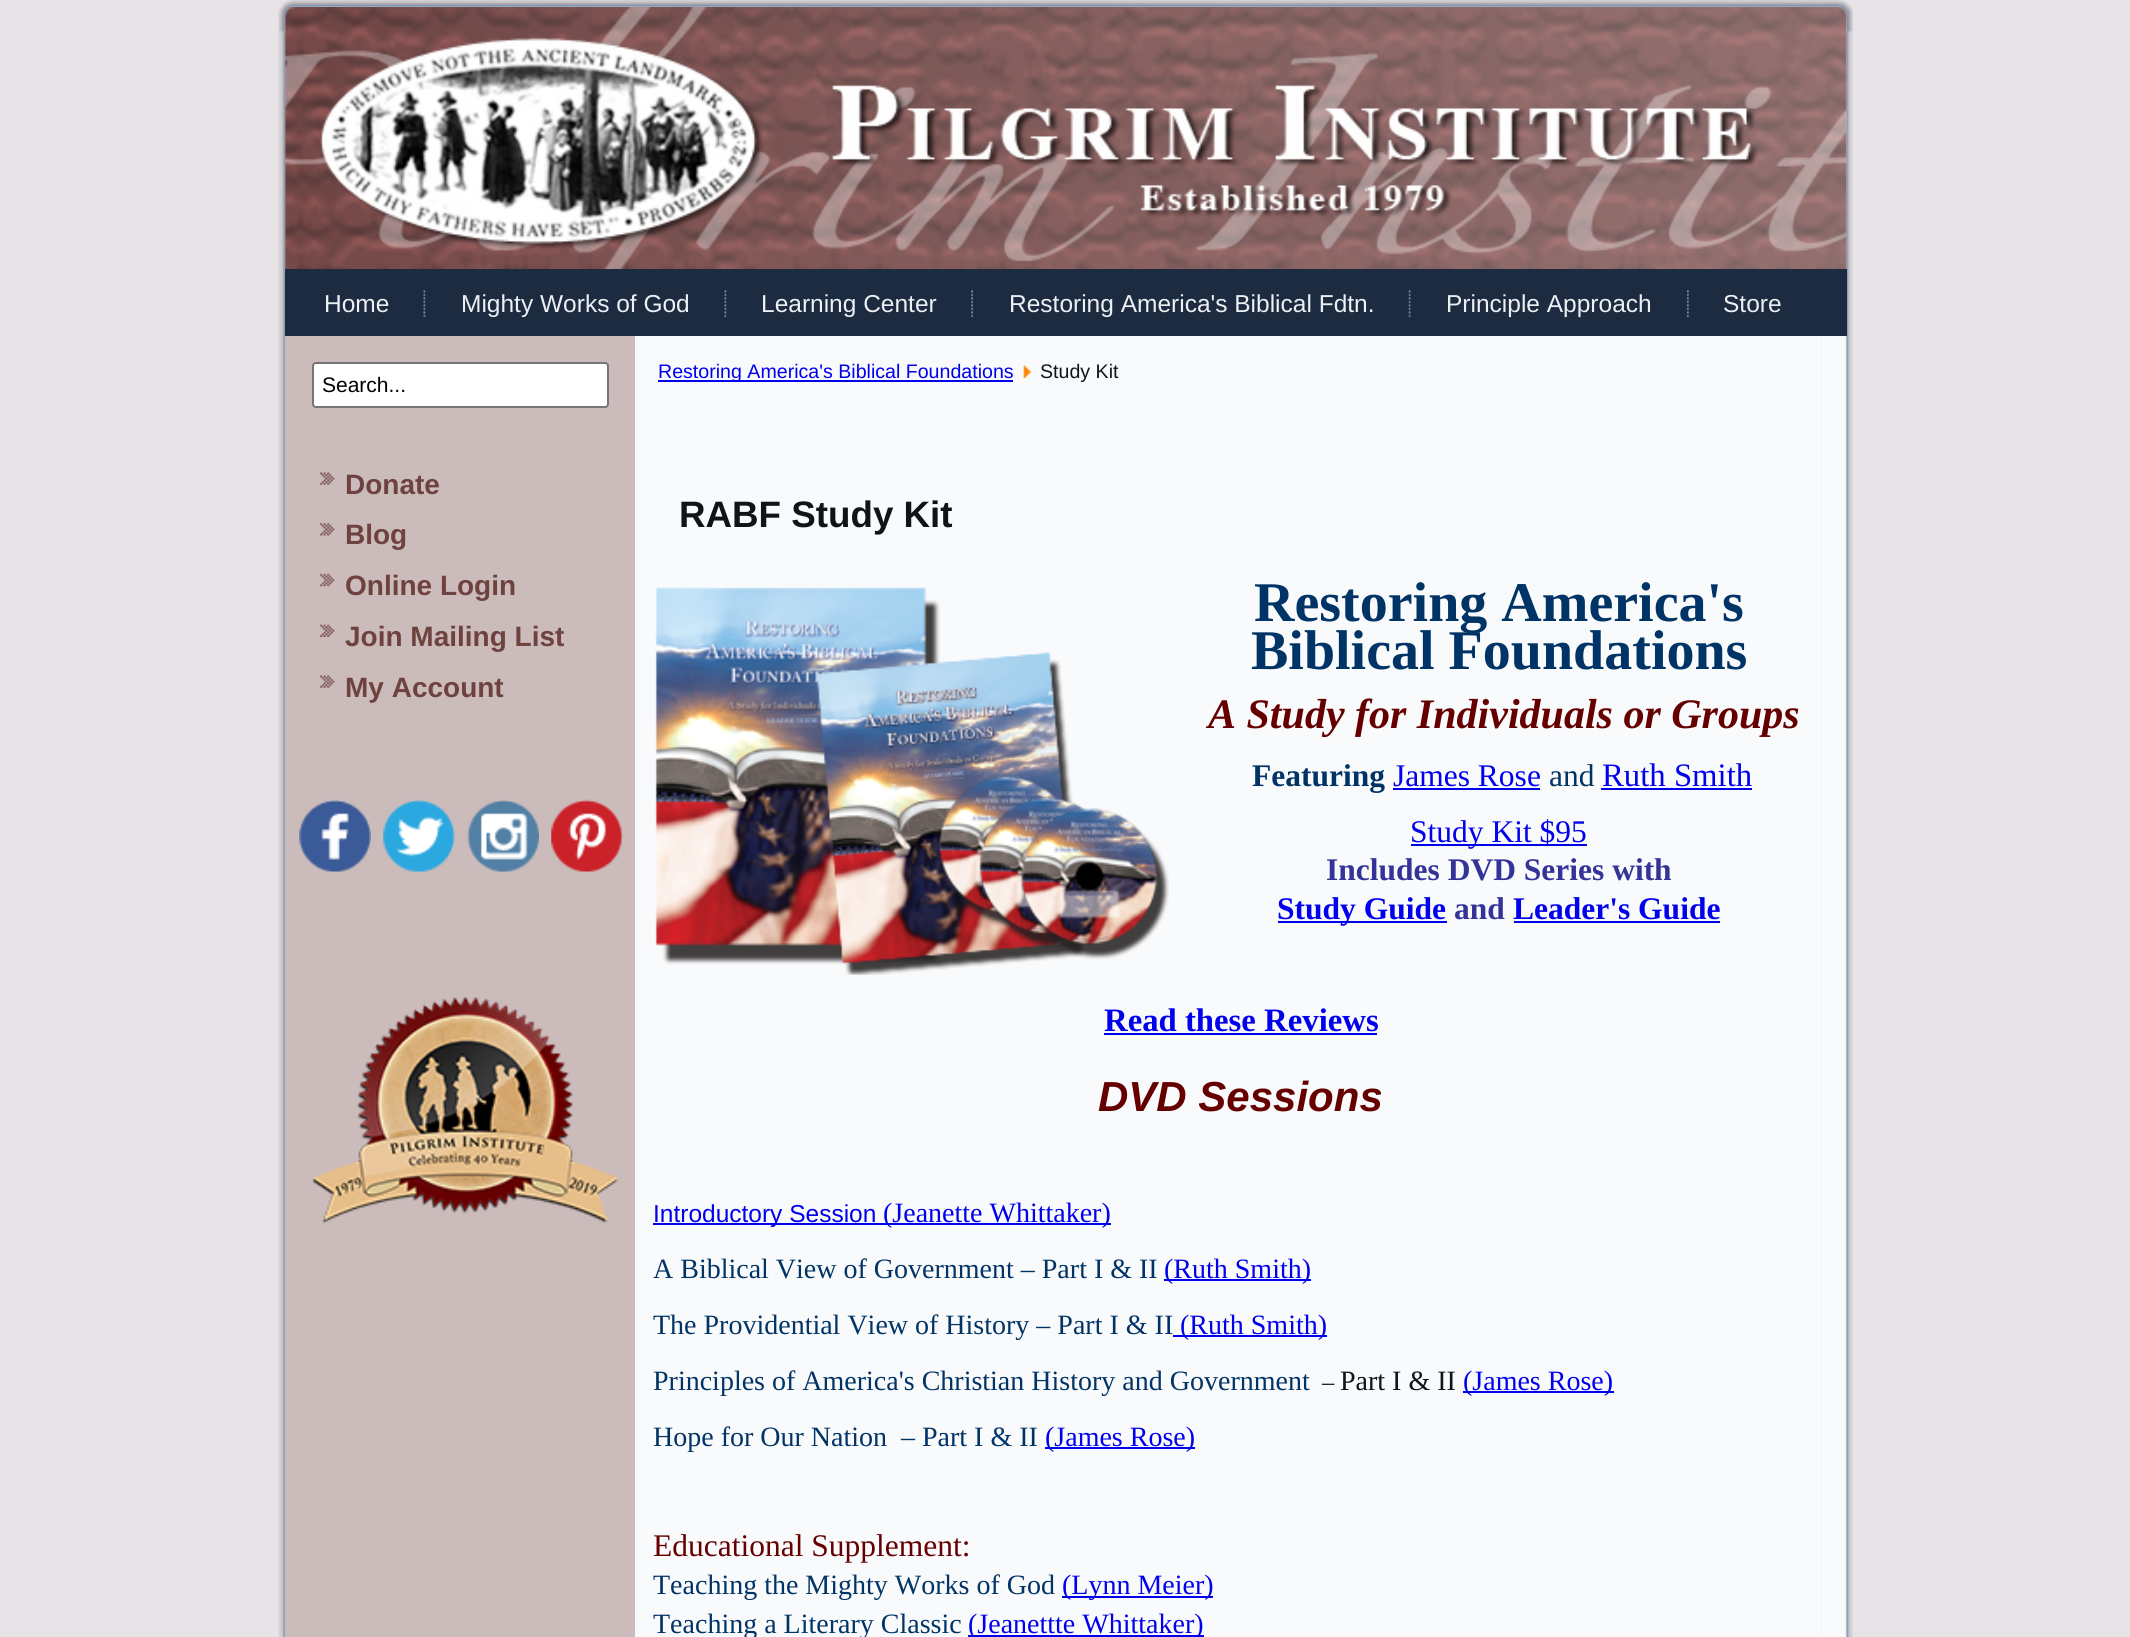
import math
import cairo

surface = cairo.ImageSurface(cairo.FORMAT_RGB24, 2130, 1637)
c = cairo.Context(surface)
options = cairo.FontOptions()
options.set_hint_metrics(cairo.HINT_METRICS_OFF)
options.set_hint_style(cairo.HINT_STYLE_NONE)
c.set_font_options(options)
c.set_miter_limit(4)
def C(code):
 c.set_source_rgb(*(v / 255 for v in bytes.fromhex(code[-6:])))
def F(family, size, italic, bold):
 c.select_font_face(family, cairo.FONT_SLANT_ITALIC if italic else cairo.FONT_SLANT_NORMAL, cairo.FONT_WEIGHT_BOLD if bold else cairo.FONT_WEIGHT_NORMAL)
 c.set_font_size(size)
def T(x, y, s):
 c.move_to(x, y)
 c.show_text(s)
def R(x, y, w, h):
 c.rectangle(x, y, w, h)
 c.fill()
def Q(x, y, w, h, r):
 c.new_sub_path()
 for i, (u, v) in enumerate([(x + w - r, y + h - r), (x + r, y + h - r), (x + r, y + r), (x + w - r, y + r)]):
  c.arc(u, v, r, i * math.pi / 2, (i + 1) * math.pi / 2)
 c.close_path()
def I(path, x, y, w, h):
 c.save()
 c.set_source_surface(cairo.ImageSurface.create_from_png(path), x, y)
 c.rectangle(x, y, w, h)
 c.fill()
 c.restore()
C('e7e3e7')
c.paint()
I('1.png',278,0,1544,32)
I('2.png',278,0,1544,32)
I('7.png',278,31,1544,1606)
I('8.png',1822,31,31,1606)
I('3.png',1821,0,32,32)
I('4.png',1821,0,32,32)
I('6.png',285,7,1562,262)
I('5.png',284,7,1563,263)
C('1d2b40')
R(285,269,1562,67)
F('Liberation Sans',24.5,0,0)
C('ecf0f4')
T(324,312,'Home')
I('9.png',423,290,3,28)
T(461,312,'Mighty Works of God')
I('9.png',724,290,3,28)
T(761,312,'Learning Center')
I('10.png',971,290,2,28)
T(1009,312,'Restoring America\'s Biblical Fdtn.')
I('11.png',1408,290,3,28)
T(1446,312,'Principle Approach')
I('12.png',1687,290,2,28)
T(1723,312,'Store')
C('ccbbbb')
R(285,336,350,1301)
C('ffffff')
Q(313,363,295,44,3)
c.fill_preserve()
C('767676')
c.stroke()
F('Liberation Sans',21,0,0)
C('000000')
T(322,392,'Search...')
I('13.png',320,472,15,13)
F('Liberation Sans',28,0,1)
C('6e423f')
T(345,494,'Donate')
I('14.png',320,522,15,14)
T(345,544,'Blog')
I('15.png',320,573,15,14)
T(345,595,'Online Login')
I('16.png',320,624,15,13)
T(345,646,'Join Mailing List')
I('13.png',320,675,15,13)
T(345,697,'My Account')
I('17.png',299,799,72,73)
I('18.png',383,799,72,73)
I('19.png',467,799,72,73)
I('20.png',551,799,72,73)
I('21.png',312,997,306,227)
C('0000ee')
R(658,380,355,2)
F('Liberation Sans',19.6,0,0)
T(658,378,'Restoring America\'s Biblical Foundations')
I('22.png',1023,365,9,13)
C('0f1419')
T(1040,378,'Study Kit')
F('Liberation Sans',36.75,0,1)
T(679,527,'RABF Study Kit')
I('23.png',655,587,514,388)
F('Liberation Serif',56,0,1)
C('003366')
T(1254,621,'Restoring America\'s')
T(1251,669,'Biblical Foundations')
F('Liberation Serif',42,1,1)
C('660000')
T(1208,728,'A Study for Individuals or Groups')
F('Liberation Serif',31.5,0,1)
C('003366')
T(1252,786,'Featuring')
F('Liberation Serif',31.5,0,0)
C('0000ee')
T(1393,786,'James Rose')
R(1393,788,147,2)
C('003366')
T(1549,786,'and')
F('Liberation Serif',32.75,0,0)
C('0000ee')
T(1602,786,'Ruth Smith')
R(1601,788,151,2)
R(1411,844,176,2)
F('Liberation Serif',31.5,0,0)
T(1410,842,'Study Kit $95')
F('Liberation Serif',31.5,0,1)
C('333399')
T(1326,880,'Includes DVD Series with')
C('0000ee')
R(1278,921,169,2)
T(1277,919,'Study Guide')
C('333399')
T(1454,919,'and')
C('0000ee')
T(1513,919,'Leader\'s Guide')
R(1514,921,206,2)
F('Liberation Serif',32.75,0,1)
T(1104,1031,'Read these Reviews')
R(1104,1033,273,2)
F('Liberation Sans',42,1,1)
C('660000')
T(1098,1111,'DVD Sessions')
C('0000ee')
R(653,1223,458,2)
F('Liberation Sans',24.5,0,0)
T(653,1222,'Introductory Session')
F('Liberation Serif',28,0,0)
T(883,1222,'(Jeanette Whittaker)')
C('003366')
T(653,1278,'A Biblical View of Government – Part I & II')
C('0000ee')
R(1164,1279,147,2)
T(1164,1278,'(Ruth Smith)')
C('003366')
T(653,1334,'The Providential View of History – Part I & II')
C('0000ee')
R(1173,1335,154,2)
T(1180,1334,'(Ruth Smith)')
C('003366')
T(653,1390,'Principles of America\'s Christian History and Government')
F('Liberation Serif',24.5,0,0)
C('0f1419')
T(1322,1390,'–')
F('Liberation Serif',28,0,0)
T(1340,1390,'Part I & II')
C('0000ee')
R(1463,1391,151,2)
T(1463,1390,'(James Rose)')
C('003366')
T(653,1446,'Hope for Our Nation')
T(901,1446,'– Part I & II')
C('0000ee')
R(1045,1447,150,2)
T(1045,1446,'(James Rose)')
F('Liberation Serif',31.5,0,0)
C('660000')
T(653,1556,'Educational Supplement:')
F('Liberation Serif',28,0,0)
C('003366')
T(653,1594,'Teaching the Mighty Works of God')
C('0000ee')
R(1062,1596,151,2)
T(1062,1594,'(Lynn Meier)')
C('003366')
T(653,1633,'Teaching a Literary Classic')
C('0000ee')
R(968,1635,236,2)
T(968,1633,'(Jeanettte Whittaker)')
surface.write_to_png('o.png')
